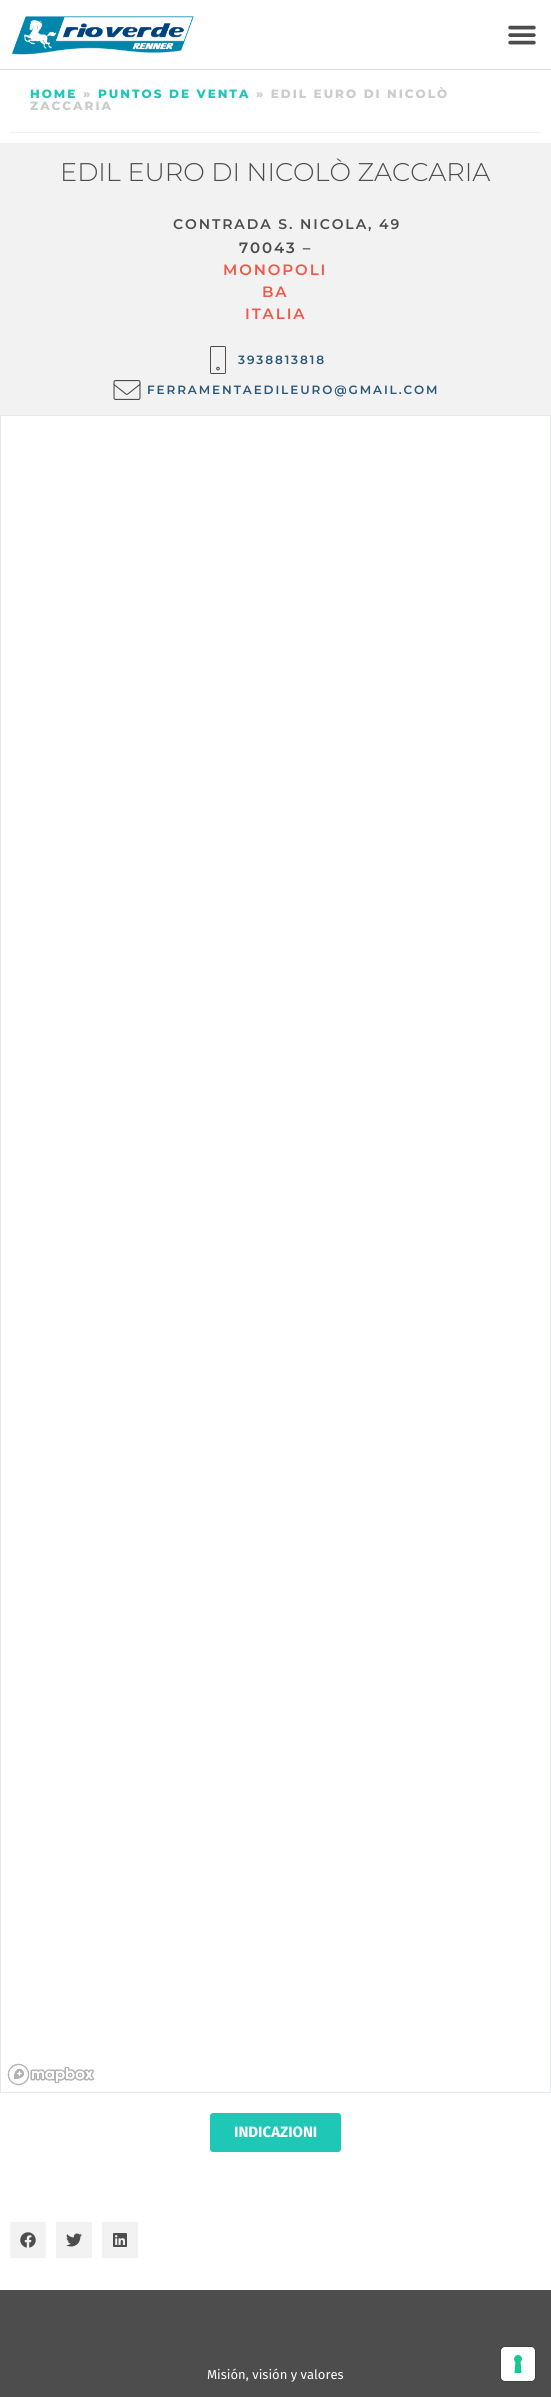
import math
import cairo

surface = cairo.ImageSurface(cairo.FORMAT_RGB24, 551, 2397)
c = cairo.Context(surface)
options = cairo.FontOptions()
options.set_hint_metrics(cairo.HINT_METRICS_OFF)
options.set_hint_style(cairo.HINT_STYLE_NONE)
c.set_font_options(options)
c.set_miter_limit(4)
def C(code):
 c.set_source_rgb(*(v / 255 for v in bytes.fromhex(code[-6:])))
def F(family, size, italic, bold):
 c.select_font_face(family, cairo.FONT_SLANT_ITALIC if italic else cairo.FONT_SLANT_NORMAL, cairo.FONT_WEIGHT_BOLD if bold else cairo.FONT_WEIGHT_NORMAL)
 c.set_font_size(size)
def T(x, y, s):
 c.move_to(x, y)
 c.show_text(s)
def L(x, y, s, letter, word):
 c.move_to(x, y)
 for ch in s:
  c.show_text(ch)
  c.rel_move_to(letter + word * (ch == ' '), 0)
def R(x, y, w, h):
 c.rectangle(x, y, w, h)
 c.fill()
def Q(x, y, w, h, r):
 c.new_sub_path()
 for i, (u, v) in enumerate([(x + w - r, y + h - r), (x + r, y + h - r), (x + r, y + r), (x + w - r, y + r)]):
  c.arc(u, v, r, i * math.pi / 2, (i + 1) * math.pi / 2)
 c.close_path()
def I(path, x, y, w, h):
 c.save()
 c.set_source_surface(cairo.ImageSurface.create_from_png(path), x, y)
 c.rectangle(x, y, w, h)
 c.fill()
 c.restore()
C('ffffff')
c.paint()
C('d8d8d8')
R(0,69,551,1)
I('1.png',12,16,182,39)
I('2.png',508,25,28,20)
C('f2f2f2')
R(10,132,531,1)
F('Montserrat ExtraBold',12,0,0)
C('1fc8b6')
L(30,98,'HOME',2,0)
C('cccccc')
L(83,98,'»',2,0)
C('1fc8b6')
L(98,98,'PUNTOS DE VENTA',2,0)
C('cccccc')
L(256,98,'» EDIL EURO DI NICOLÒ',2,0)
L(30,110,'ZACCARIA',2,0)
C('f2f2f2')
R(0,143,551,272)
F('Montserrat Light',25.6,0,0)
C('4d4d4d')
T(60,181,'EDIL EURO DI NICOLÒ ZACCARIA')
F('Montserrat SemiBold',14,0,0)
L(173,229,'CONTRADA S. NICOLA, 49',1.9,0)
F('Montserrat SemiBold',15,0,0)
L(239,253,'70043 –',1.9,0)
C('f0594a')
L(223,275,'MONOPOLI',1.9,0)
L(262,297,'BA',1.9,0)
L(245,319,'ITALIA',1.9,0)
Q(210.5,346.5,15,27,1)
C('4e4d4d')
c.set_line_width(1)
c.stroke()
c.arc(218,368.6,1.3,0,2 * math.pi)
c.set_line_width(1.1)
c.stroke()
F('Montserrat SemiBold',12,0,0)
C('2b5877')
L(238,364,'3938813818',1.9,0)
I('3.png',113,380,28,20)
L(147,394,'FERRAMENTAEDILEURO@GMAIL.COM',1.9,0)
c.rectangle(.5,415.5,550,1677)
C('e5e7eb')
c.set_line_width(1)
c.stroke()
I('4.png',7,2063,87,23)
C('1fc8b6')
Q(210,2113,131,39,3)
c.fill()
F('Fira Sans',15,0,1)
C('ffffff')
T(234,2137,'INDICAZIONI')
C('f2f2f2')
R(10,2222,36,36)
I('5.png',20,2232,16,16)
R(56,2222,36,36)
I('6.png',66,2233,16,14)
R(102,2222,36,36)
I('7.png',113,2233,14,14)
C('4d4d4d')
R(0,2290,551,107)
F('Fira Sans',13,0,0)
C('ffffff')
T(207,2379,'Misión, visión y valores')
Q(500.5,2346.5,35,35,4.5)
C('414141')
c.stroke()
C('ffffff')
Q(501,2347,34,34,4)
c.fill()
I('8.png',514,2355,8,18)
surface.write_to_png('o.png')
